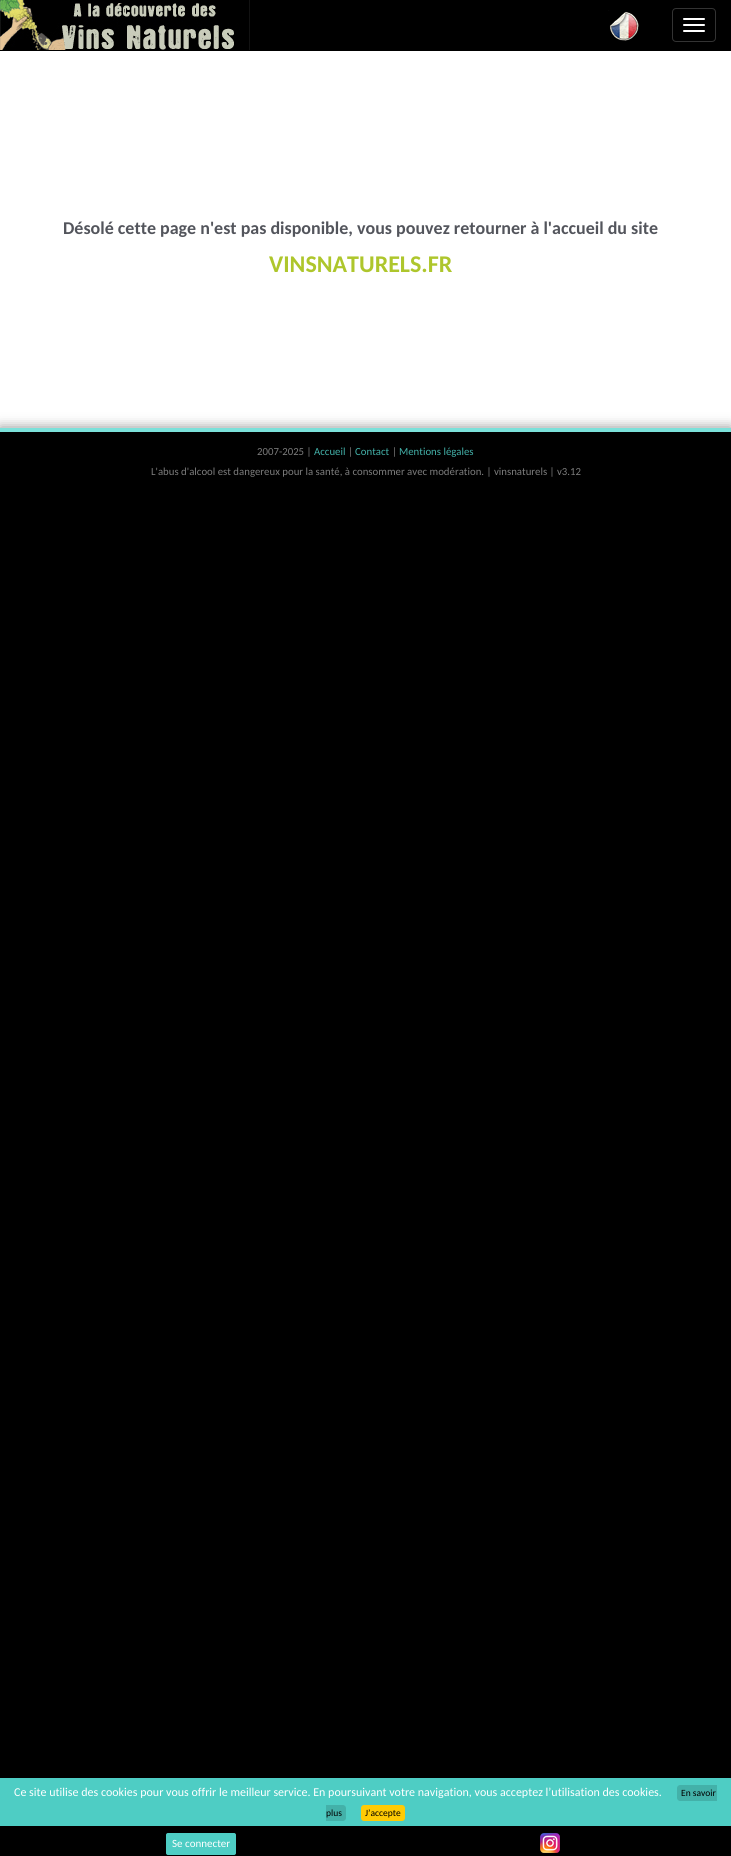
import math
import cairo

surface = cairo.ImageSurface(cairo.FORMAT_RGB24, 731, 1856)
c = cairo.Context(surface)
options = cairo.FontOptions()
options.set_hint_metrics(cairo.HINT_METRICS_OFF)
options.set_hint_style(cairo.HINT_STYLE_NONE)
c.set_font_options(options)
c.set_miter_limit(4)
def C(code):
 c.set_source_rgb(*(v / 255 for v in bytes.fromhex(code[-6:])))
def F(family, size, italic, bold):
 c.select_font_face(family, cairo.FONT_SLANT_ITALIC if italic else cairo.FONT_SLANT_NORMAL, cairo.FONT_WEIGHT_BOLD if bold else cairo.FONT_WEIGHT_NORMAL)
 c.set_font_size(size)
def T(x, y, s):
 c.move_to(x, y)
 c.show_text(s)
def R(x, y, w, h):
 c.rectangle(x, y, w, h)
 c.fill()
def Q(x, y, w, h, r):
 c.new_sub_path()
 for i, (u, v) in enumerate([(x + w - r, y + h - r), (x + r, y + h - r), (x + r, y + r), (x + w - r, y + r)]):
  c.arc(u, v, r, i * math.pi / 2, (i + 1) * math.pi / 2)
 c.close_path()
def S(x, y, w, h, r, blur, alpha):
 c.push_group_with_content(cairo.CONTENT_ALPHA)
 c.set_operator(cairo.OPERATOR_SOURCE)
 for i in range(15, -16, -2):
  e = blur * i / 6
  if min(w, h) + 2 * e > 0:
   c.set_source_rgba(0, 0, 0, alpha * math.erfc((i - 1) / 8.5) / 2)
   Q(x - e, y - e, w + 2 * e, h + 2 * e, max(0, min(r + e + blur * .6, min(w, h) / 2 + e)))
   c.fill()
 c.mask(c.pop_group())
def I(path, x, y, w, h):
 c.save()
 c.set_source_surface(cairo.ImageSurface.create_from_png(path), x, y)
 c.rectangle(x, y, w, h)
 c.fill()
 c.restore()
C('000000')
c.paint()
I('1.png',0,0,250,50)
Q(672.5,8.5,43,33,3.5)
C('333333')
c.set_line_width(1)
c.stroke()
C('ffffff')
Q(683,18,22,2,1)
c.fill()
Q(683,24,22,2,1)
c.fill()
Q(683,30,22,2,1)
c.fill()
I('2.png',608,10,31,31)
R(0,51,731,377)
F('Carlito',18,0,1)
C('53555c')
T(63,234,'Désolé cette page n\'est pas disponible, vous pouvez retourner à l\'accueil du site')
F('Carlito',24,0,1)
C('aec62c')
T(269,272,'VINSNATURELS.FR')
c.save()
c.set_fill_rule(cairo.FILL_RULE_EVEN_ODD)
c.new_path()
c.move_to(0,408)
c.line_to(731,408)
c.line_to(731,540)
c.line_to(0,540)
c.close_path()
c.move_to(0,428)
c.line_to(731,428)
c.line_to(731,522)
c.line_to(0,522)
c.close_path()
c.clip()
C('000000')
S(0,427,731,94,0,6,.4)
c.restore()
C('7ce1da')
R(0,428,731,4)
F('Carlito',10.8,0,0)
C('7c7c7c')
T(257,455,'2007-2025 |')
C('43b1a9')
T(314,455,'Accueil')
C('7c7c7c')
T(348,455,'|')
C('43b1a9')
T(355,455,'Contact')
C('7c7c7c')
T(392,455,'|')
C('43b1a9')
T(399,455,'Mentions légales')
C('7c7c7c')
T(151,475,'L\'abus d\'alcool est dangereux pour la santé, à consommer avec modération. | vinsnaturels | v3.12')
C('4ecdc4')
R(0,1778,731,48)
F('Carlito',12,0,0)
C('ffffff')
T(14,1796,'Ce site utilise des cookies pour vous offrir le meilleur service. En poursuivant votre navigation, vous acceptez l’utilisation des cookies.')
C('43b1a9')
c.new_path()
c.move_to(680,1785)
c.line_to(717,1785)
c.line_to(717,1801)
c.line_to(680,1801)
c.curve_to(678.5,1801,677,1799.5,677,1798)
c.line_to(677,1788)
c.curve_to(677,1786.5,678.5,1785,680,1785)
c.close_path()
c.fill()
F('Carlito',9.5,0,0)
C('000000')
T(681,1796,'En savoir')
C('43b1a9')
c.new_path()
c.move_to(326,1805)
c.line_to(343,1805)
c.curve_to(344.5,1805,346,1806.5,346,1808)
c.line_to(346,1818)
c.curve_to(346,1819.5,344.5,1821,343,1821)
c.line_to(326,1821)
c.close_path()
c.fill()
C('000000')
T(326,1816,'plus')
C('ffcb05')
Q(361,1805,44,16,3)
c.fill()
C('000000')
T(365,1816,'J’accepte')
C('4ecdc4')
Q(166.5,1833.5,69,21,1.5)
c.fill_preserve()
c.stroke()
F('Carlito',11,0,0)
C('ffffff')
T(172,1847,'Se connecter')
I('3.png',540,1833,20,20)
surface.write_to_png('o.png')
